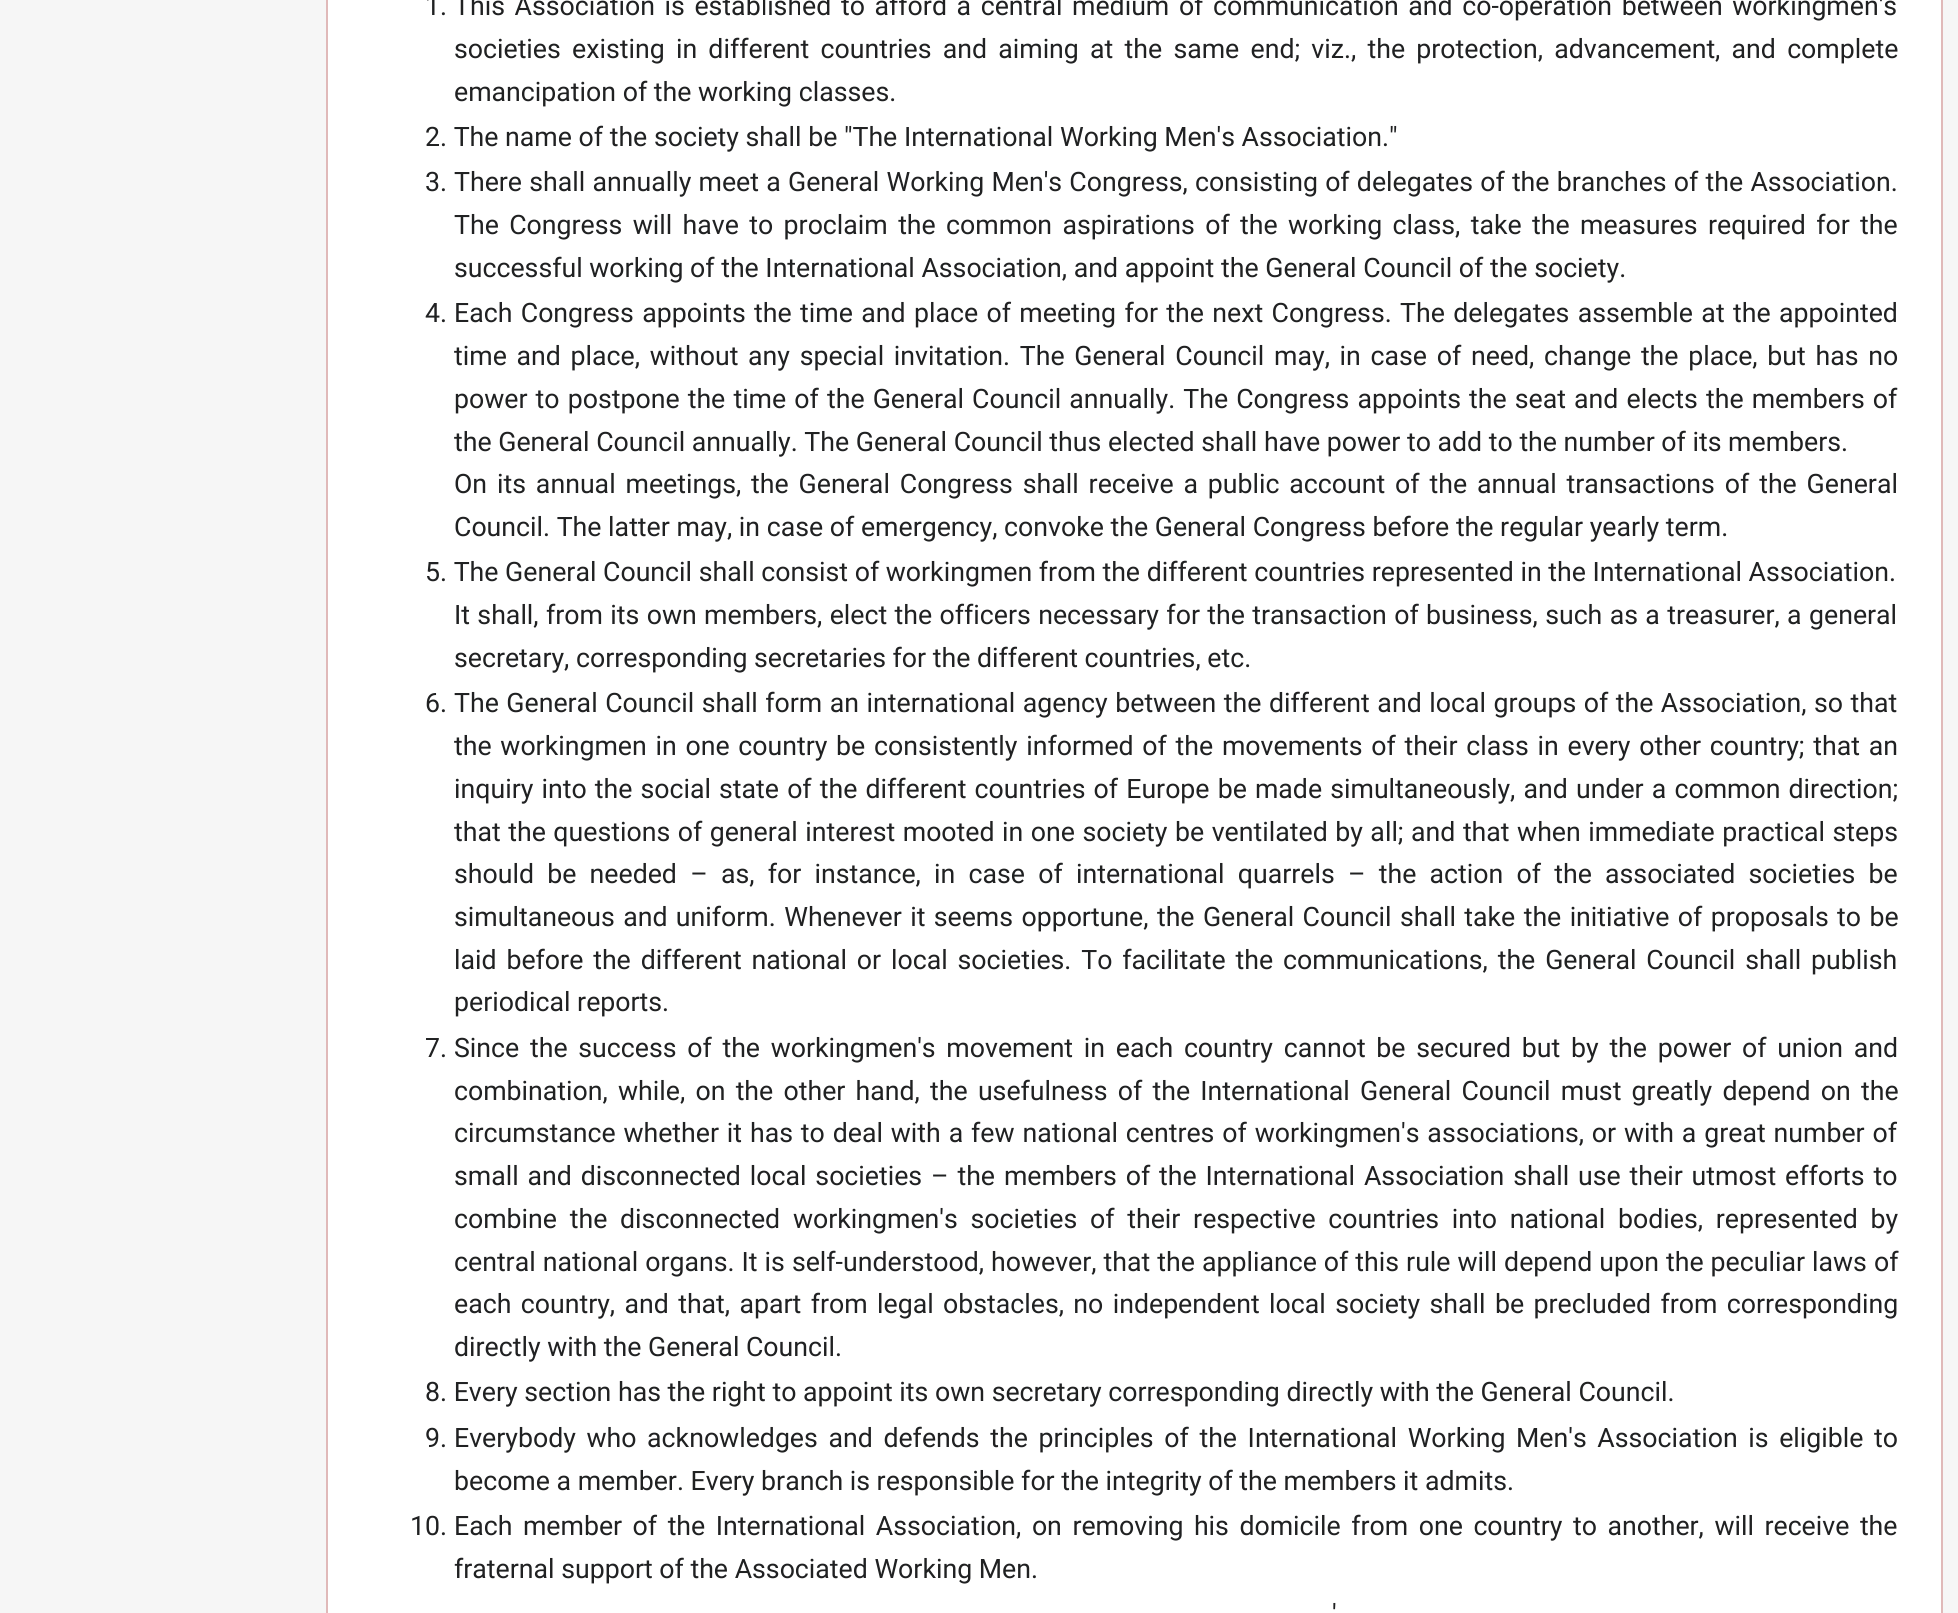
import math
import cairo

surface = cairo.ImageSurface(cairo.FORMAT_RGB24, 1958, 1613)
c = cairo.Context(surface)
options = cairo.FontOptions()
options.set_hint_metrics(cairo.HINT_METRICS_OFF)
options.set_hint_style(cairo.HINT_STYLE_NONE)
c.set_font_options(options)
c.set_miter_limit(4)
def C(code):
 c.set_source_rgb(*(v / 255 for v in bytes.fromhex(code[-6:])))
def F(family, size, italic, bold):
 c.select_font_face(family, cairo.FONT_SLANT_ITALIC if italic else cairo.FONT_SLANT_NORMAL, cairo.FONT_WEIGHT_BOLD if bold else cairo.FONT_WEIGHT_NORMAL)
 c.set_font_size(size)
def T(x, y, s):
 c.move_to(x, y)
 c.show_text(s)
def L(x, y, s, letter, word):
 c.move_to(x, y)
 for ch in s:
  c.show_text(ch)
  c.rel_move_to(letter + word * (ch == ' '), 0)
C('f6f6f6')
c.paint()
C('ffffff')
c.rectangle(327,-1,1615,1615)
c.fill_preserve()
C('e0b9b9')
c.stroke()
F('Roboto',26.7,0,0)
C('202122')
T(425,15,'1.')
L(454,15,'This Association is established to afford a central medium of communication and co-operation between workingmen\'s',0,3)
L(454,58,'societies existing in different countries and aiming at the same end; viz., the protection, advancement, and complete',0,4.6)
T(454,101,'emancipation of the working classes.')
T(425,146,'2. The name of the society shall be "The International Working Men\'s Association."')
T(425,191,'3.')
L(454,191,'There shall annually meet a General Working Men\'s Congress, consisting of delegates of the branches of the Association.',0,.6)
L(454,234,'The Congress will have to proclaim the common aspirations of the working class, take the measures required for the',0,3.75)
T(454,277,'successful working of the International Association, and appoint the General Council of the society.')
T(425,322,'4.')
L(454,322,'Each Congress appoints the time and place of meeting for the next Congress. The delegates assemble at the appointed',0,1.75)
L(454,365,'time and place, without any special invitation. The General Council may, in case of need, change the place, but has no',0,3.1)
L(454,408,'power to postpone the time of the General Council annually. The Congress appoints the seat and elects the members of',0,1.5)
T(454,451,'the General Council annually. The General Council thus elected shall have power to add to the number of its members.')
L(454,493,'On its annual meetings, the General Congress shall receive a public account of the annual transactions of the General',0,3.25)
T(454,536,'Council. The latter may, in case of emergency, convoke the General Congress before the regular yearly term.')
T(425,581,'5. The General Council shall consist of workingmen from the different countries represented in the International Association.')
L(454,624,'It shall, from its own members, elect the officers necessary for the transaction of business, such as a treasurer, a general',0,.75)
T(454,667,'secretary, corresponding secretaries for the different countries, etc.')
T(425,712,'6.')
L(454,712,'The General Council shall form an international agency between the different and local groups of the Association, so that',0,.9)
L(454,755,'the workingmen in one country be consistently informed of the movements of their class in every other country; that an',0,2.1)
L(454,798,'inquiry into the social state of the different countries of Europe be made simultaneously, and under a common direction;',0,1.5)
L(454,841,'that the questions of general interest mooted in one society be ventilated by all; and that when immediate practical steps',0,.9)
L(454,883,'should be needed – as, for instance, in case of international quarrels – the action of the associated societies be',0,6.6)
L(454,926,'simultaneous and uniform. Whenever it seems opportune, the General Council shall take the initiative of proposals to be',0,1.75)
L(454,969,'laid before the different national or local societies. To facilitate the communications, the General Council shall publish',0,3.25)
T(454,1011,'periodical reports.')
T(425,1057,'7.')
L(454,1057,'Since the success of the workingmen\'s movement in each country cannot be secured but by the power of union and',0,4.1)
L(454,1100,'combination, while, on the other hand, the usefulness of the International General Council must greatly depend on the',0,3.6)
L(454,1142,'circumstance whether it has to deal with a few national centres of workingmen\'s associations, or with a great number of',0,1.25)
L(454,1185,'small and disconnected local societies – the members of the International Association shall use their utmost efforts to',0,2.25)
L(454,1228,'combine the disconnected workingmen\'s societies of their respective countries into national bodies, represented by',0,6.1)
L(454,1271,'central national organs. It is self-understood, however, that the appliance of this rule will depend upon the peculiar laws of',0,.4)
L(454,1313,'each country, and that, apart from legal obstacles, no independent local society shall be precluded from corresponding',0,2.75)
T(454,1356,'directly with the General Council.')
T(425,1401,'8. Every section has the right to appoint its own secretary corresponding directly with the General Council.')
T(425,1447,'9.')
L(454,1447,'Everybody who acknowledges and defends the principles of the International Working Men\'s Association is eligible to',0,4)
T(454,1490,'become a member. Every branch is responsible for the integrity of the members it admits.')
T(410,1535,'10.')
L(454,1535,'Each member of the International Association, on removing his domicile from one country to another, will receive the',0,3.9)
T(454,1578,'fraternal support of the Associated Working Men.')
T(1332,1623,'\'')
surface.write_to_png('o.png')
